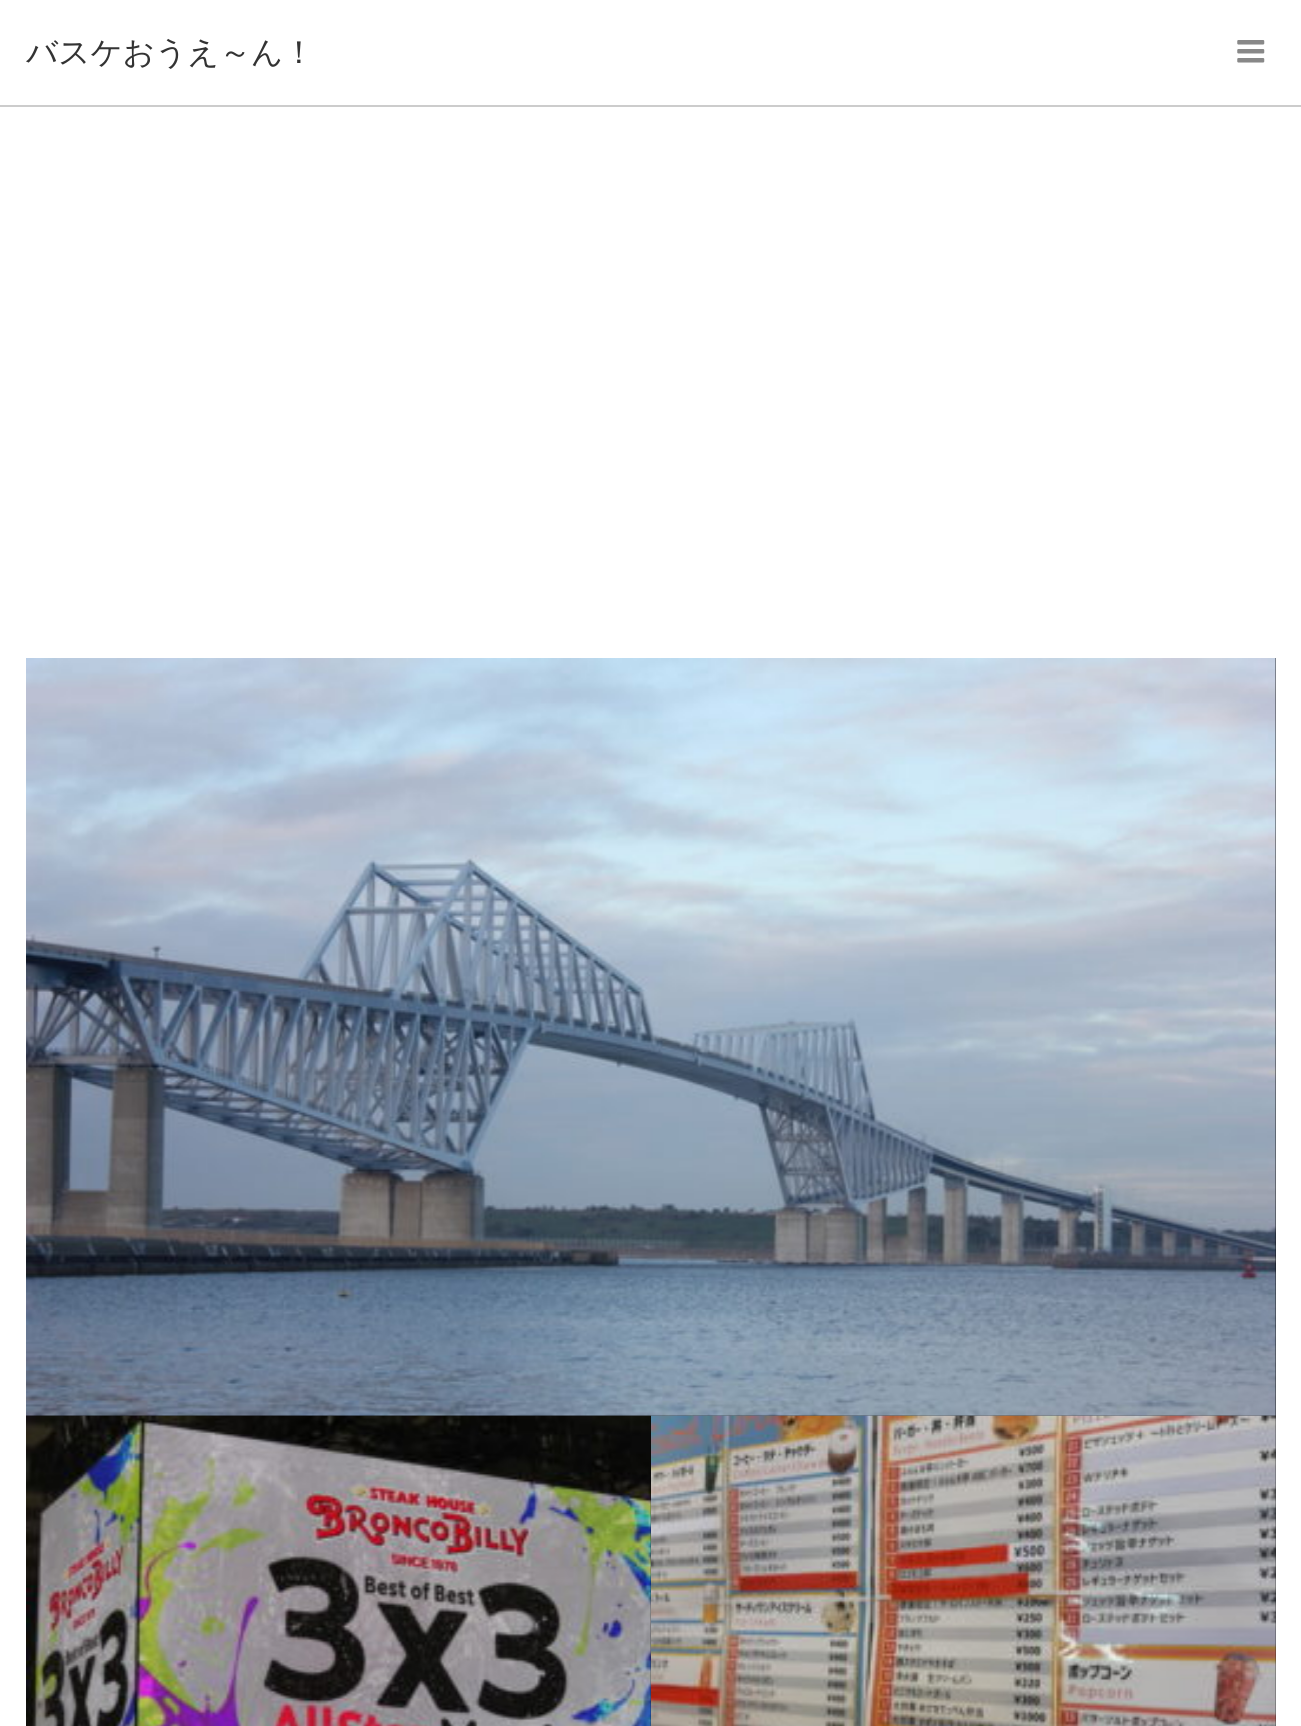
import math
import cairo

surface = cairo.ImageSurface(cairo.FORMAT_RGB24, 1301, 1726)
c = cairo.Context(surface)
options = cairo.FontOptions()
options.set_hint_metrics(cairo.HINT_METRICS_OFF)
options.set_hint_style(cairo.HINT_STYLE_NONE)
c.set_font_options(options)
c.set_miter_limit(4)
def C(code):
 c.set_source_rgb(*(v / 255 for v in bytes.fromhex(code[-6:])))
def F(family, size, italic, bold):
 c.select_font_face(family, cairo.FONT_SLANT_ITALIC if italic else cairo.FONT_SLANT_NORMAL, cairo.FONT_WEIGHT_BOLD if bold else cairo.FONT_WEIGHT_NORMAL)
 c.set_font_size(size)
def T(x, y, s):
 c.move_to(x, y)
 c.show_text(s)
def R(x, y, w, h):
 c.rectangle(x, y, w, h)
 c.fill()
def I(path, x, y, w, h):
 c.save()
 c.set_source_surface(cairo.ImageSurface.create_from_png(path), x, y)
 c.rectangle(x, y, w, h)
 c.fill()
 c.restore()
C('ffffff')
c.paint()
C('cccccc')
R(0,105,1301,2)
F('WenQuanYi Zen Hei Medium',31.5,0,0)
C('333333')
T(26,63,'バスケおうえ～ん！')
I('1.png',1237,40,28,23)
C('000000')
R(26,658,1250,1068)
I('2.png',26,658,1250,758)
I('3.png',26,1415,625,311)
I('4.png',651,1415,625,311)
surface.write_to_png('o.png')
